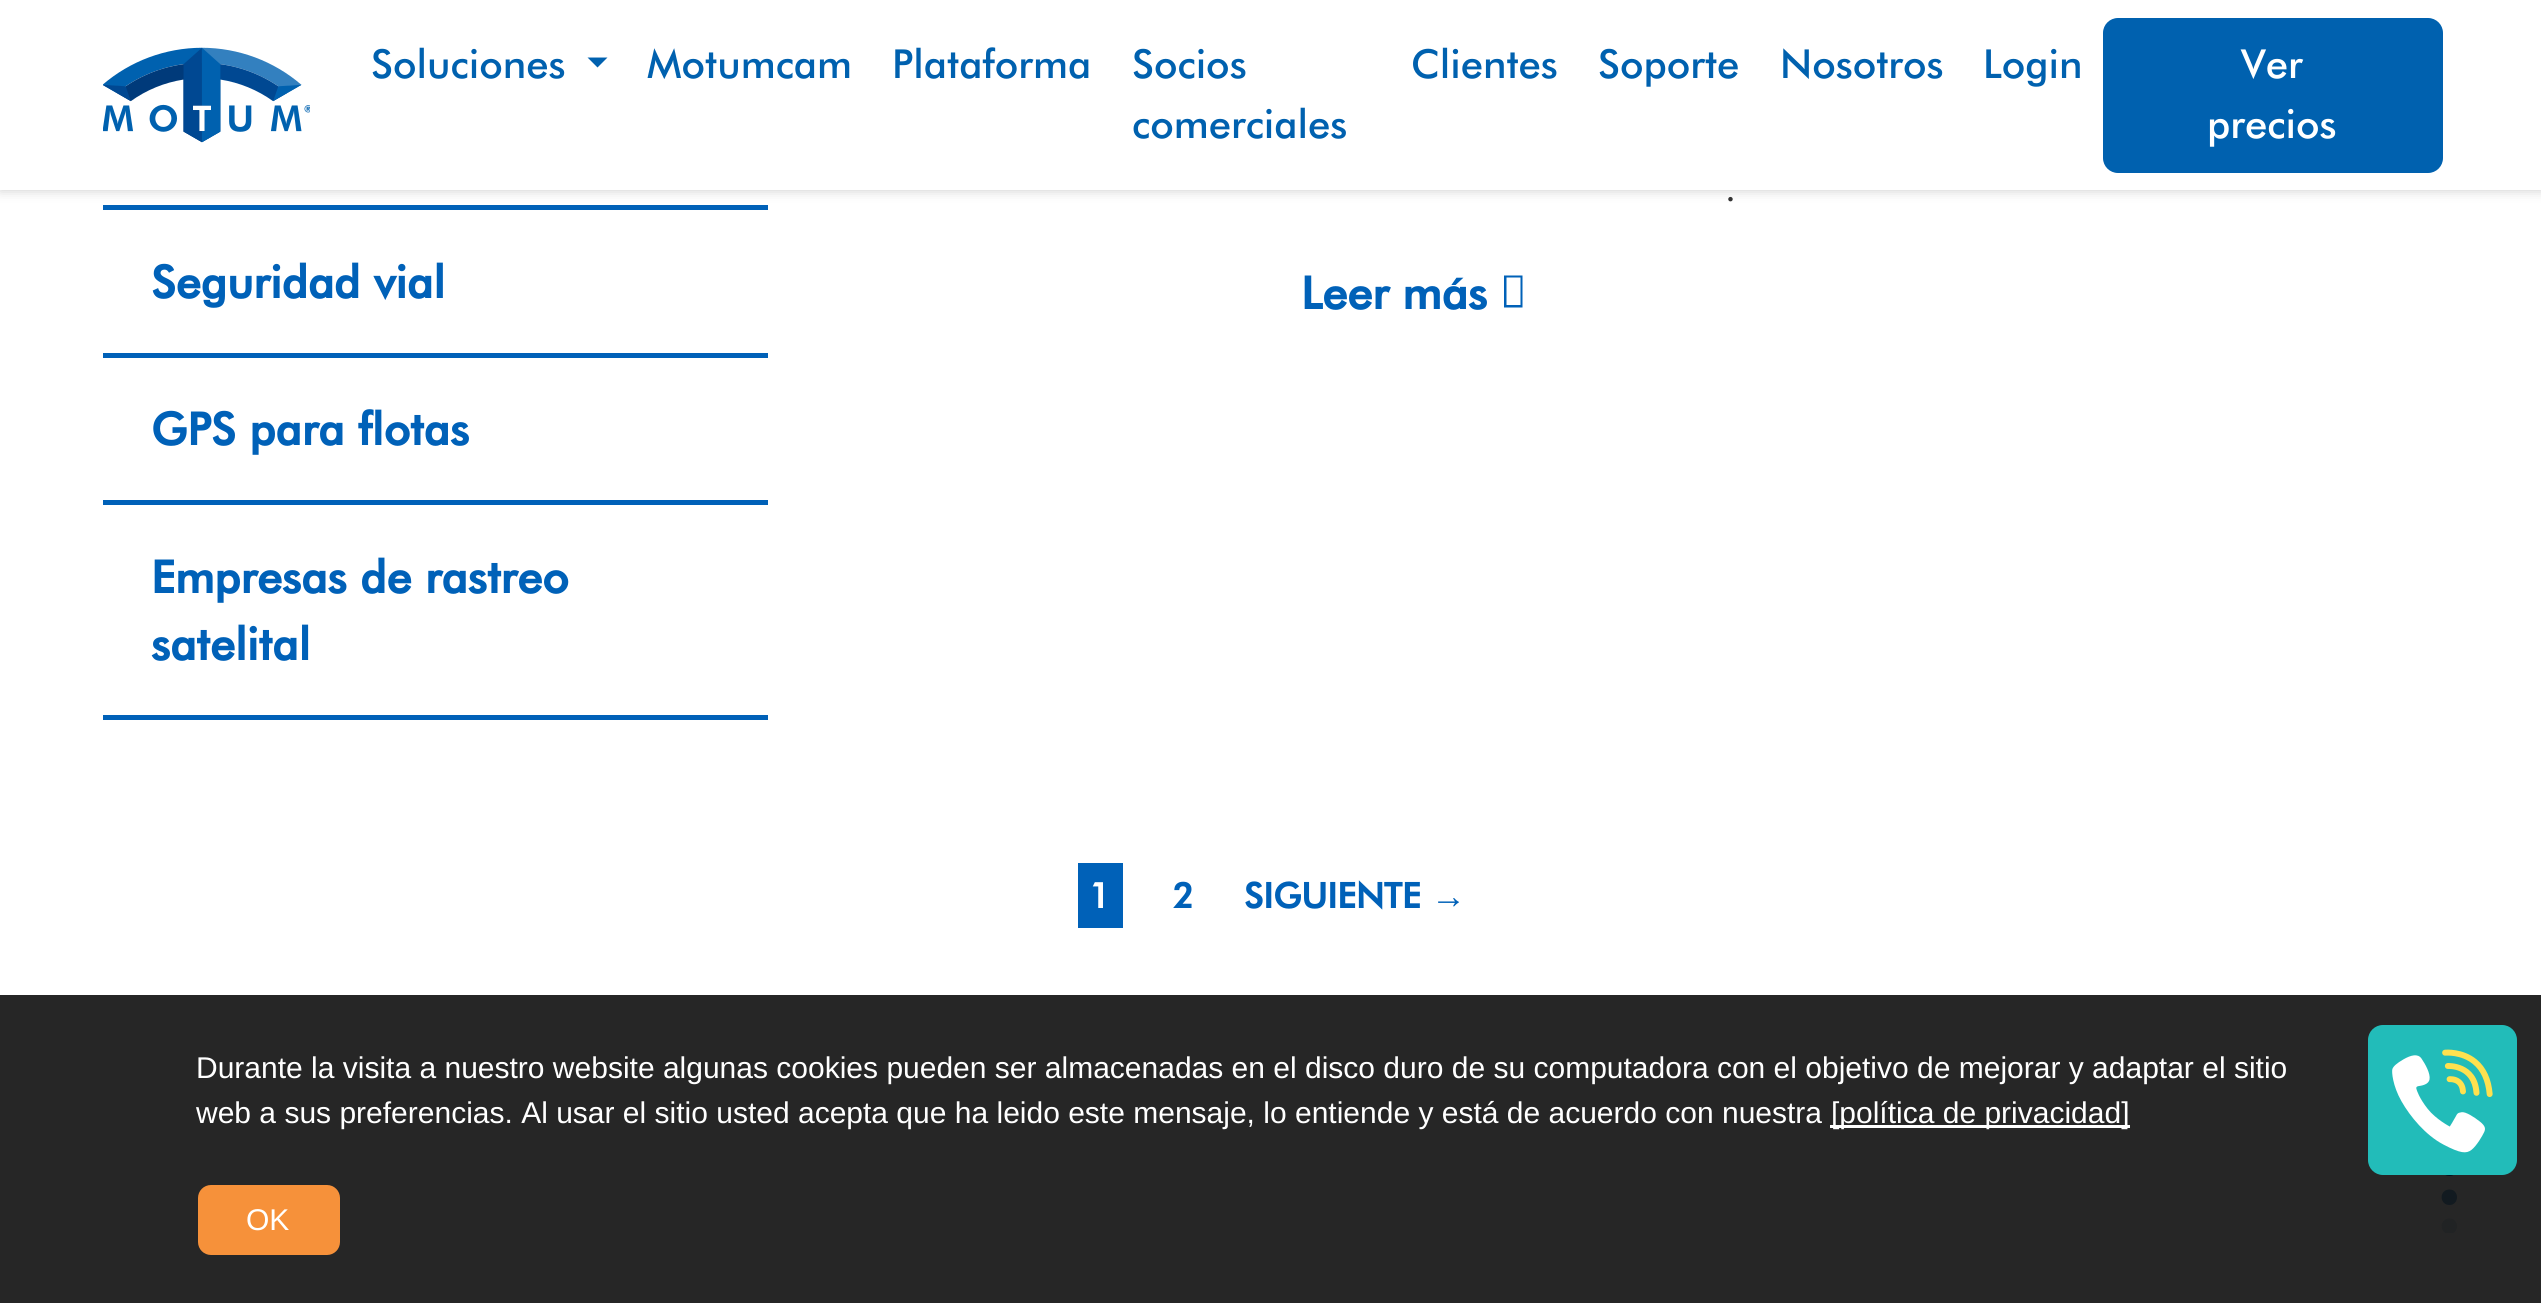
import math
import cairo

surface = cairo.ImageSurface(cairo.FORMAT_RGB24, 2541, 1303)
c = cairo.Context(surface)
options = cairo.FontOptions()
options.set_hint_metrics(cairo.HINT_METRICS_OFF)
options.set_hint_style(cairo.HINT_STYLE_NONE)
c.set_font_options(options)
c.set_miter_limit(4)
def C(code):
 c.set_source_rgb(*(v / 255 for v in bytes.fromhex(code[-6:])))
def F(family, size, italic, bold):
 c.select_font_face(family, cairo.FONT_SLANT_ITALIC if italic else cairo.FONT_SLANT_NORMAL, cairo.FONT_WEIGHT_BOLD if bold else cairo.FONT_WEIGHT_NORMAL)
 c.set_font_size(size)
def T(x, y, s):
 c.move_to(x, y)
 c.show_text(s)
def R(x, y, w, h):
 c.rectangle(x, y, w, h)
 c.fill()
def Q(x, y, w, h, r):
 c.new_sub_path()
 for i, (u, v) in enumerate([(x + w - r, y + h - r), (x + r, y + h - r), (x + r, y + r), (x + w - r, y + r)]):
  c.arc(u, v, r, i * math.pi / 2, (i + 1) * math.pi / 2)
 c.close_path()
def S(x, y, w, h, r, blur, alpha):
 c.push_group_with_content(cairo.CONTENT_ALPHA)
 c.set_operator(cairo.OPERATOR_SOURCE)
 for i in range(15, -16, -2):
  e = blur * i / 6
  if min(w, h) + 2 * e > 0:
   c.set_source_rgba(0, 0, 0, alpha * math.erfc((i - 1) / 8.5) / 2)
   Q(x - e, y - e, w + 2 * e, h + 2 * e, max(0, min(r + e + blur * .6, min(w, h) / 2 + e)))
   c.fill()
 c.mask(c.pop_group())
def I(path, x, y, w, h):
 c.save()
 c.set_source_surface(cairo.ImageSurface.create_from_png(path), x, y)
 c.rectangle(x, y, w, h)
 c.fill()
 c.restore()
C('ffffff')
c.paint()
C('262626')
R(0,995,2541,308)
C('0061b8')
R(103,205,665,5)
C('cccccc')
S(0,0,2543,190,0,6,1)
C('ffffff')
R(0,0,2541,190)
I('1.png',103,47,207,96)
F('Futura Medium',40,0,0)
C('0061af')
T(371,78,'Soluciones')
c.new_path()
c.move_to(587.5,57.5)
c.line_to(607.5,57.5)
c.line_to(597.5,67.5)
c.close_path()
c.fill()
T(647,78,'Motumcam')
T(892,78,'Plataforma')
T(1132,78,'Socios')
T(1132,138,'comerciales')
T(1411,78,'Clientes')
T(1598,78,'Soporte')
T(1780,78,'Nosotros')
T(1983,78,'Login')
Q(2103,18,340,155,15)
c.fill()
C('ffffff')
T(2241,78,'Ver')
T(2207,138,'precios')
C('0061b8')
R(103,353,665,5)
F('Futura',45,0,1)
T(151,298,'Seguridad vial')
R(103,500,665,5)
T(151,445,'GPS para flotas')
R(103,715,665,5)
T(151,593,'Empresas de rastreo')
T(151,660,'satelital')
F('Futura Light',45,0,0)
C('333333')
T(1724,201,'.')
F('Futura',45,0,1)
C('0061b8')
T(1301,309,'Leer más')
c.new_path()
c.move_to(1504,307.5)
c.line_to(1504,275.5)
c.line_to(1522.5,275.5)
c.line_to(1522.5,307.5)
c.close_path()
c.move_to(1506.5,305)
c.line_to(1520.5,305)
c.line_to(1520.5,277.5)
c.line_to(1506.5,277.5)
c.close_path()
c.fill()
R(1078,863,45,65)
F('Futura',35,0,1)
C('ffffff')
T(1089,908,'1')
C('0061b8')
T(1173,908,'2')
T(1244,908,'SIGUIENTE')
F('Liberation Sans',35,0,1)
T(1431,908,'→')
C('000f1a')
c.new_path()
c.move_to(2449.5,1176)
c.curve_to(2439,1176,2439,1160.5,2449.5,1160.5)
c.curve_to(2459.5,1160.5,2459.5,1176,2449.5,1176)
c.close_path()
c.fill()
C('121a20')
c.new_path()
c.move_to(2449.5,1205)
c.curve_to(2439,1205,2439,1189.5,2449.5,1189.5)
c.curve_to(2459.5,1189.5,2459.5,1205,2449.5,1205)
c.close_path()
c.fill()
c.save()
c.rectangle(2415,1073,65,160)
c.clip()
C('212324')
c.new_path()
c.move_to(2449.5,1234)
c.curve_to(2439,1234,2439,1218.5,2449.5,1218.5)
c.curve_to(2459.5,1218.5,2459.5,1234,2449.5,1234)
c.close_path()
c.fill()
c.restore()
F('Liberation Sans',30,0,0)
C('ffffff')
T(196,1078,'Durante la visita a nuestro website algunas cookies pueden ser almacenadas en el disco duro de su computadora con el objetivo de mejorar y adaptar el sitio')
T(196,1123,'web a sus preferencias. Al usar el sitio usted acepta que ha leido este mensaje, lo entiende y está de acuerdo con nuestra')
R(1830,1125,300,3)
T(1831,1123,'[política de privacidad]')
C('f6913a')
Q(198,1185,142,70,13)
c.fill()
C('ffffff')
T(246,1230,'OK')
I('2.png',2368,1025,149,150)
surface.write_to_png('o.png')
